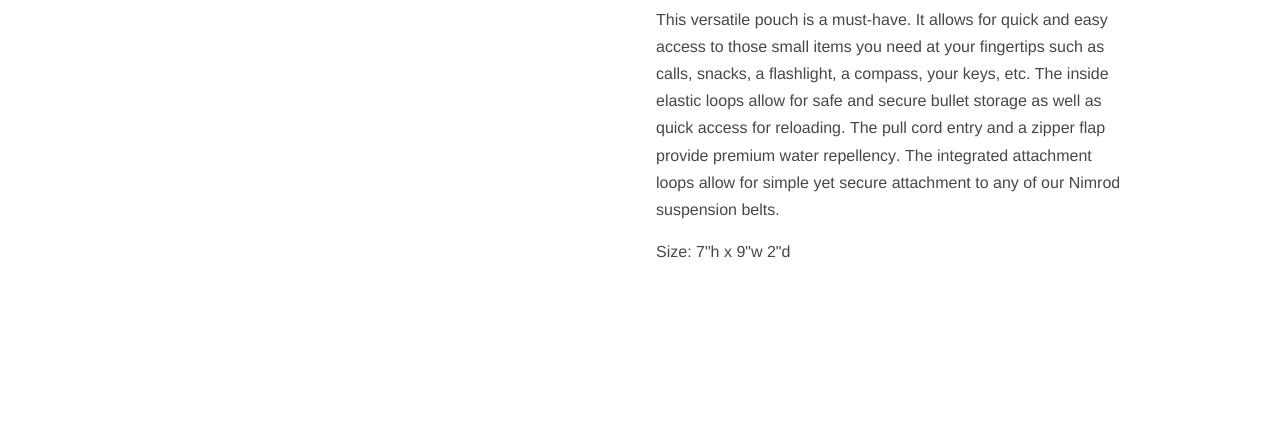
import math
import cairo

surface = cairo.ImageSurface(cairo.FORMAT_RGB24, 1282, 423)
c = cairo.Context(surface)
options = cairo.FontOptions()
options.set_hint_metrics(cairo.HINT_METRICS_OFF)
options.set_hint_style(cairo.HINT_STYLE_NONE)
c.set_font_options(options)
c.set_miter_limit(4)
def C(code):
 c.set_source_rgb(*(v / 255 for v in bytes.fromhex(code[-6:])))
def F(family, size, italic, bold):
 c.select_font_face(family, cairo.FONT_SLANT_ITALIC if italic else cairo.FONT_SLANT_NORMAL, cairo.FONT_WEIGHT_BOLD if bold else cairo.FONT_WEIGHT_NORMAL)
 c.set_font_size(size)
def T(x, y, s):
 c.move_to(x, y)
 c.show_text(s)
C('ffffff')
c.paint()
F('Liberation Sans',16,0,0)
C('474747')
T(656,25,'This versatile pouch is a must-have. It allows for quick and easy')
T(656,52,'access to those small items you need at your fingertips such as')
T(656,79,'calls, snacks, a flashlight, a compass, your keys, etc. The inside')
T(656,106,'elastic loops allow for safe and secure bullet storage as well as')
T(656,133,'quick access for reloading. The pull cord entry and a zipper flap')
T(656,161,'provide premium water repellency. The integrated attachment')
T(656,188,'loops allow for simple yet secure attachment to any of our Nimrod')
T(656,215,'suspension belts.')
T(656,257,'Size: 7"h x 9"w 2"d')
surface.write_to_png('o.png')
